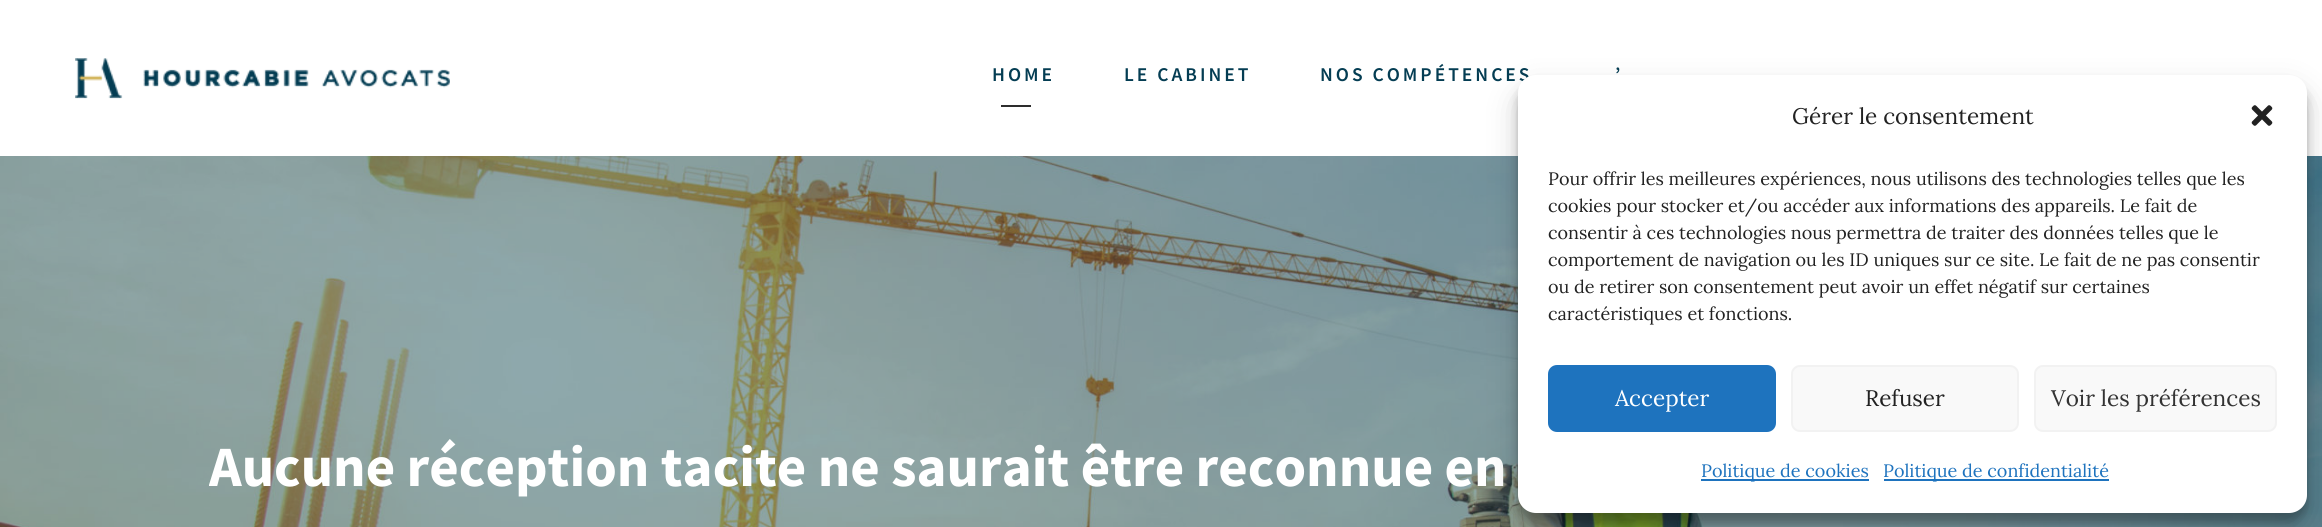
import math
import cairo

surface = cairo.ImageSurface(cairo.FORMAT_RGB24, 2322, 527)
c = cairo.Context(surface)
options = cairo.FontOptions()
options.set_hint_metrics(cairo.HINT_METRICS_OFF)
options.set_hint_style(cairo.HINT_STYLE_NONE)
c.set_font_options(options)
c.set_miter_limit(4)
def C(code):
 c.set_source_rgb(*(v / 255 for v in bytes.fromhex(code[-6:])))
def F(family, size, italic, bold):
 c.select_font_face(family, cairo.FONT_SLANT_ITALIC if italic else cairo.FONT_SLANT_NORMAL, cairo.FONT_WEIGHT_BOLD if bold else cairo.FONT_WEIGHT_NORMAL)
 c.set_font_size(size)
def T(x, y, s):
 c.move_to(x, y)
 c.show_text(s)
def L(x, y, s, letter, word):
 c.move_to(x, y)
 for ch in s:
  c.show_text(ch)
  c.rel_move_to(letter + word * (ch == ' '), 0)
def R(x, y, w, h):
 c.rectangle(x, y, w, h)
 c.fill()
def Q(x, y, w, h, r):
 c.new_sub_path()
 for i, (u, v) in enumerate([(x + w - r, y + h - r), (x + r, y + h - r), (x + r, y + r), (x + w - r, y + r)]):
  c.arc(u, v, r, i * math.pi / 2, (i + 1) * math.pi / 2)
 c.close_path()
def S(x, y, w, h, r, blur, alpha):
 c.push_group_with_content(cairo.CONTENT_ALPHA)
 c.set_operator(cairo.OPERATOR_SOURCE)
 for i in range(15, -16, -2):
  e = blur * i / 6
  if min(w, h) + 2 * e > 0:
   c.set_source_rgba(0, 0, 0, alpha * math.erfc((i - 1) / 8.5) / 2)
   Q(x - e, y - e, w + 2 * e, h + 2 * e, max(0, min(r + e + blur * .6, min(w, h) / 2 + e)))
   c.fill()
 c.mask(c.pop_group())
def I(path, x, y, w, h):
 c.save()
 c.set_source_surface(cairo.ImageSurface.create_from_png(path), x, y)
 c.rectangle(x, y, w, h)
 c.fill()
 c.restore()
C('ffffff')
c.paint()
I('1.png',75,58,375,41)
F('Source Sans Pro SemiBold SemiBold',19.5,0,0)
C('043d53')
L(992,81,'HOME',3,0)
L(1124,81,'LE CABINET',3,0)
L(1320,81,'NOS COMPÉTENCES',3,0)
L(1615,81,'’',3,0)
C('2d2d2d')
R(1001,105,30,2)
I('2.png',0,156,2322,371)
c.save()
c.rectangle(209,432,1905,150)
c.clip()
F('Source Sans Pro',57,0,1)
C('ffffff')
T(209,486,'Aucune réception tacite ne saurait être reconnue en')
c.restore()
C('000000')
S(1518,84,789,438,18,4.5,.23)
S(1518,90,789,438,18,15,.19)
C('ffffff')
Q(1518,75,789,438,18)
c.fill()
F('Lora',22.5,0,0)
C('222222')
T(1792,124,'Gérer le consentement')
I('3.png',2251,105,22,21)
F('Lora',18,0,0)
T(1548,185,'Pour offrir les meilleures expériences, nous utilisons des technologies telles que les')
T(1548,212,'cookies pour stocker et/ou accéder aux informations des appareils. Le fait de')
T(1548,239,'consentir à ces technologies nous permettra de traiter des données telles que le')
T(1548,266,'comportement de navigation ou les ID uniques sur ce site. Le fait de ne pas consentir')
T(1548,293,'ou de retirer son consentement peut avoir un effet négatif sur certaines')
T(1548,320,'caractéristiques et fonctions.')
C('1e73be')
Q(1549,366,226,65,8)
c.fill_preserve()
c.stroke()
F('Lora',22.5,0,0)
C('ffffff')
T(1615,406,'Accepter')
C('f9f9f9')
Q(1792,366,226,65,8)
c.fill_preserve()
C('f2f2f2')
c.stroke()
C('222222')
T(1865,406,'Refuser')
C('f9f9f9')
Q(2035,366,241,65,8)
c.fill_preserve()
C('f2f2f2')
c.stroke()
C('333333')
T(2051,406,'Voir les préférences')
C('1e73be')
R(1701,479,168,2)
F('Lora',18,0,0)
T(1701,477,'Politique de cookies')
R(1884,479,225,2)
T(1883,477,'Politique de confidentialité')
surface.write_to_png('o.png')
